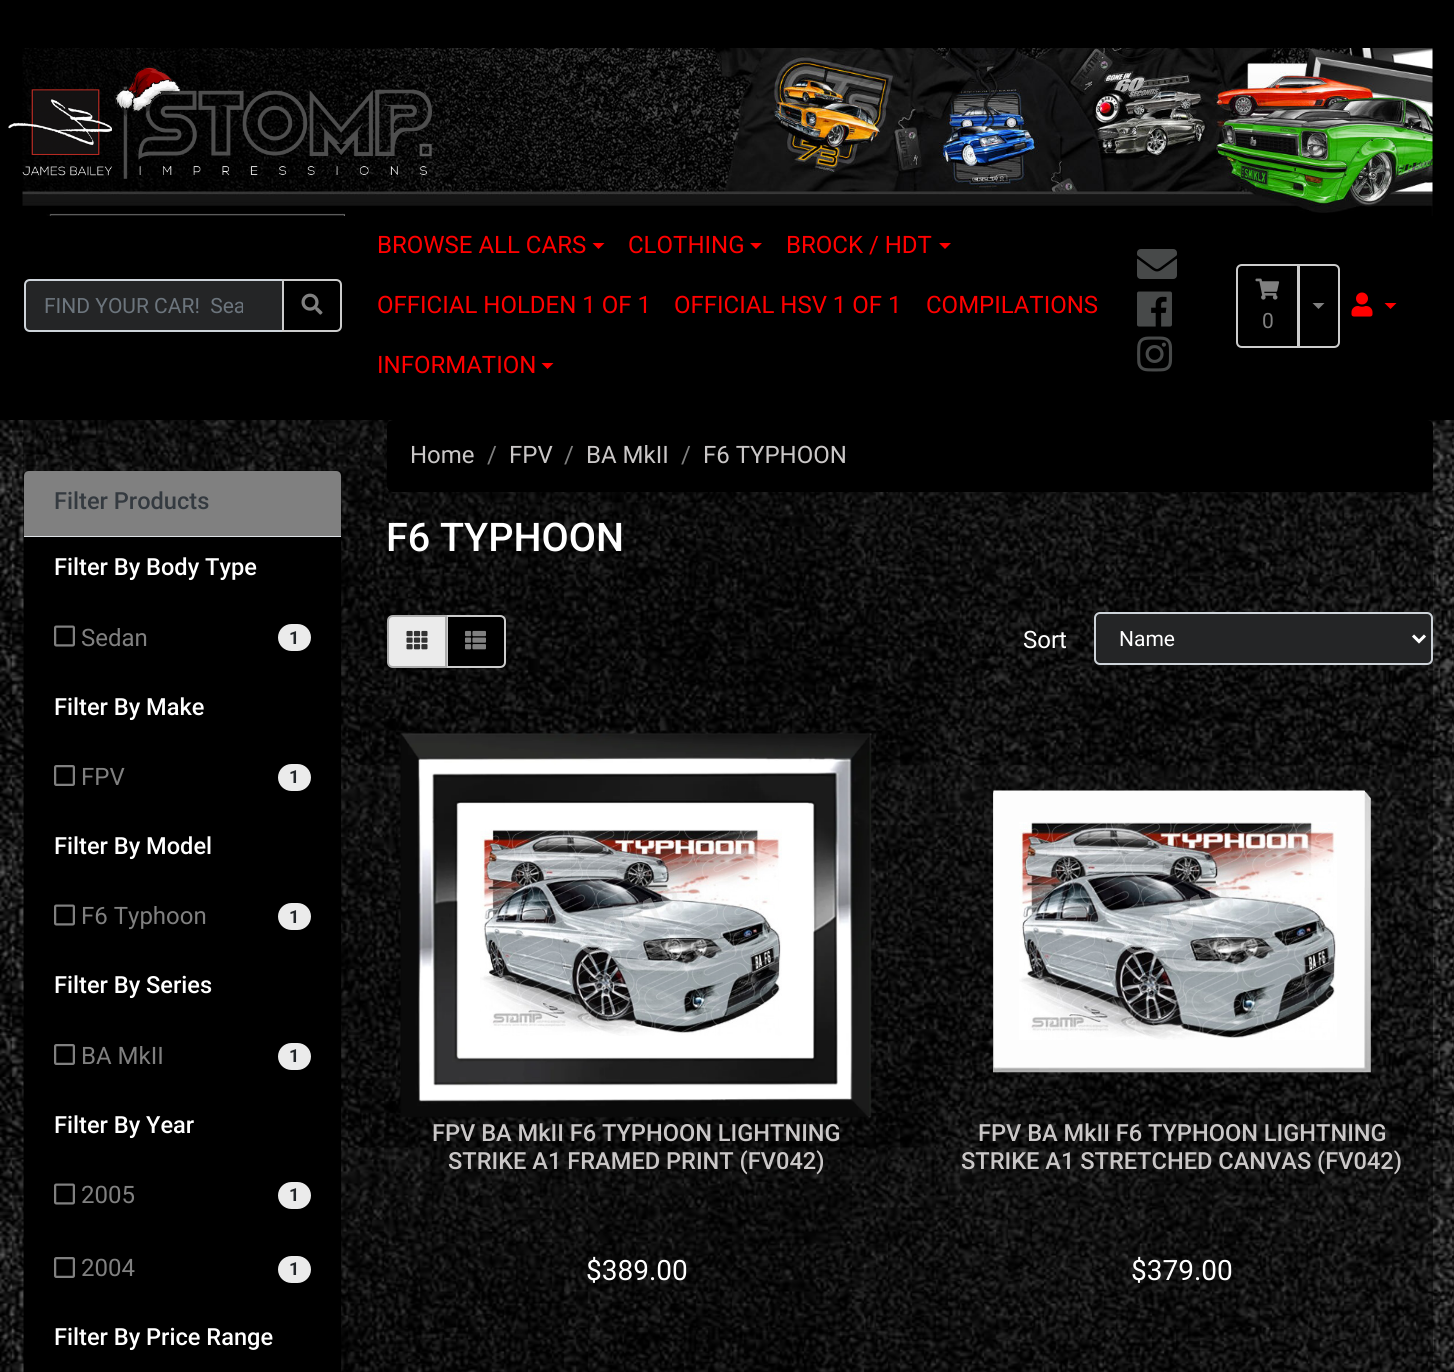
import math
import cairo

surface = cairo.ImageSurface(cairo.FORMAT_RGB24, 1454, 1372)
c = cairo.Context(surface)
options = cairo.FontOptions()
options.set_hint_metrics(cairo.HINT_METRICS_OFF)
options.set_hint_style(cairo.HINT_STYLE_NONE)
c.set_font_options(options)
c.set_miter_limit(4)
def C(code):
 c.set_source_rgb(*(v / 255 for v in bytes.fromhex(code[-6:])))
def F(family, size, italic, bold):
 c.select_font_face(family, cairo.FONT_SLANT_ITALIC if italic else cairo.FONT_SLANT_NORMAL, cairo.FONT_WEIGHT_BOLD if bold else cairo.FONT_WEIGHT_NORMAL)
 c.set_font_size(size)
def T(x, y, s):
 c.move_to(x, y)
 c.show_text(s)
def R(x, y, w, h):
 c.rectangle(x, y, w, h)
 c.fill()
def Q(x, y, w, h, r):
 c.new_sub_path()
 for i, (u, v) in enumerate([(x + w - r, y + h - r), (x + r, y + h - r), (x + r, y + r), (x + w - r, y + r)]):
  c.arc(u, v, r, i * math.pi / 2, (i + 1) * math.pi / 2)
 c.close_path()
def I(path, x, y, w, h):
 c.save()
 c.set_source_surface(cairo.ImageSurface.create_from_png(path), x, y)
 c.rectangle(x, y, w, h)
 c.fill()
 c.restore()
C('ffffff')
c.paint()
I('1.png',0,420,1454,952)
C('000000')
R(0,0,1454,420)
I('2.png',22,48,1411,168)
I('3.png',8,66,424,113)
C('242526')
c.new_path()
c.move_to(30,280)
c.line_to(283,280)
c.line_to(283,331)
c.line_to(30,331)
c.curve_to(27,331,25,329,25,326)
c.line_to(25,285)
c.curve_to(25,282,27,280,30,280)
c.close_path()
c.fill_preserve()
C('ced4da')
c.stroke()
c.save()
c.rectangle(44,294,199,24)
c.clip()
F('Roboto',21,0,0)
C('6c757d')
T(44,313,'FIND YOUR CAR!  Sea')
c.restore()
C('000000')
c.new_path()
c.move_to(283,280)
c.line_to(336,280)
c.curve_to(339,280,341,282,341,285)
c.line_to(341,326)
c.curve_to(341,329,339,331,336,331)
c.line_to(283,331)
c.close_path()
c.fill_preserve()
C('cccccc')
c.stroke()
I('4.png',301,293,22,22)
F('Roboto',24,0,0)
C('ff0000')
T(377,253,'BROWSE ALL CARS')
c.new_path()
c.move_to(592.5,243)
c.line_to(604.5,243)
c.line_to(598.5,249)
c.close_path()
c.fill()
T(628,253,'CLOTHING')
c.new_path()
c.move_to(750,243)
c.line_to(762,243)
c.line_to(756,249)
c.close_path()
c.fill()
T(786,253,'BROCK / HDT')
c.new_path()
c.move_to(939,243)
c.line_to(951,243)
c.line_to(945,249)
c.close_path()
c.fill()
T(377,313,'OFFICIAL HOLDEN 1 OF 1')
T(674,313,'OFFICIAL HSV 1 OF 1')
T(926,313,'COMPILATIONS')
T(377,373,'INFORMATION')
c.new_path()
c.move_to(541.5,363)
c.line_to(553.5,363)
c.line_to(547.5,369)
c.close_path()
c.fill()
I('5.png',1137,249,40,30)
I('6.png',1137,291,35,36)
I('7.png',1137,336,36,36)
I('8.png',1351,292,22,25)
c.new_path()
c.move_to(1384.5,303)
c.line_to(1396.5,303)
c.line_to(1390.5,309)
c.close_path()
c.fill()
c.new_path()
c.move_to(1242,265)
c.line_to(1298,265)
c.line_to(1298,347)
c.line_to(1242,347)
c.curve_to(1239,347,1237,345,1237,342)
c.line_to(1237,270)
c.curve_to(1237,267,1239,265,1242,265)
c.close_path()
C('cccccc')
c.stroke()
I('9.png',1255,278,25,22)
F('Roboto',21,0,0)
C('808080')
T(1262,328,'0')
C('000000')
c.new_path()
c.move_to(1299,265)
c.line_to(1334,265)
c.curve_to(1337,265,1339,267,1339,270)
c.line_to(1339,342)
c.curve_to(1339,345,1337,347,1334,347)
c.line_to(1299,347)
c.close_path()
c.fill_preserve()
C('cccccc')
c.stroke()
C('808080')
c.new_path()
c.move_to(1312.5,303)
c.line_to(1324.5,303)
c.line_to(1318.5,309)
c.close_path()
c.fill()
c.set_source_rgba(0,0,0,0.42)
R(23,420,1410,952)
c.set_source_rgba(0,0,0,0.1)
R(36,444,306,2)
Q(24,471,317,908,5)
c.set_source_rgba(0,0,0,0.12)
c.stroke()
C('808080')
c.new_path()
c.move_to(29,471)
c.line_to(336,471)
c.curve_to(339,471,341,473,341,476)
c.line_to(341,537)
c.line_to(24,537)
c.line_to(24,476)
c.curve_to(24,473,26,471,29,471)
c.close_path()
c.fill()
C('dee2e6')
R(24,536,317,1)
F('Roboto Medium',23.6,0,0)
C('343a40')
T(54,509,'Filter Products')
C('000000')
R(24,537,317,835)
C('ffffff')
T(54,575,'Filter By Body Type')
I('10.png',54,625,21,22)
F('Roboto',24,0,0)
C('808080')
T(81,646,'Sedan')
C('ebebeb')
Q(278,624,33,27,13.5)
c.fill()
F('Roboto',18,0,1)
C('212529')
T(289,644,'1')
F('Roboto Medium',23.6,0,0)
C('ffffff')
T(54,715,'Filter By Make')
I('11.png',54,765,21,21)
F('Roboto',24,0,0)
C('808080')
T(81,785,'FPV')
C('ebebeb')
Q(278,764,33,27,13.5)
c.fill()
F('Roboto',18,0,1)
C('212529')
T(289,783,'1')
F('Roboto Medium',23.6,0,0)
C('ffffff')
T(54,854,'Filter By Model')
I('10.png',54,904,21,22)
F('Roboto',24,0,0)
C('808080')
T(81,924,'F6 Typhoon')
C('ebebeb')
Q(278,903,33,27,13.5)
c.fill()
F('Roboto',18,0,1)
C('212529')
T(289,923,'1')
F('Roboto Medium',23.6,0,0)
C('ffffff')
T(54,993,'Filter By Series')
I('11.png',54,1044,21,21)
F('Roboto',24,0,0)
C('808080')
T(81,1064,'BA MkII')
C('ebebeb')
Q(278,1043,33,27,13.5)
c.fill()
F('Roboto',18,0,1)
C('212529')
T(289,1062,'1')
F('Roboto Medium',23.6,0,0)
C('ffffff')
T(54,1133,'Filter By Year')
I('10.png',54,1183,21,22)
F('Roboto',24,0,0)
C('808080')
T(81,1203,'2005')
C('ebebeb')
Q(278,1182,33,27,13.5)
c.fill()
F('Roboto',18,0,1)
C('212529')
T(289,1201,'1')
I('11.png',54,1257,21,21)
F('Roboto',24,0,0)
C('808080')
T(81,1276,'2004')
C('ebebeb')
Q(278,1256,33,27,13.5)
c.fill()
F('Roboto',18,0,1)
C('212529')
T(289,1275,'1')
F('Roboto Medium',23.6,0,0)
C('ffffff')
T(54,1345,'Filter By Price Range')
C('000000')
Q(387,420,1046,72,6)
c.fill()
F('Roboto',24,0,0)
C('cac7c7')
T(410,463,'Home')
C('808080')
T(487,463,'/')
C('cac7c7')
T(509,463,'FPV')
C('808080')
T(564,463,'/')
C('cac7c7')
T(586,463,'BA MkII')
C('808080')
T(681,463,'/')
C('cac7c7')
T(703,463,'F6 TYPHOON')
F('Roboto Medium',39.5,0,0)
C('ffffff')
T(386,551,'F6 TYPHOON')
c.set_source_rgba(0,0,0,0.1)
R(387,587,1001,2)
C('000000')
c.new_path()
c.move_to(447,616)
c.line_to(500,616)
c.curve_to(503,616,505,618,505,621)
c.line_to(505,662)
c.curve_to(505,665,503,667,500,667)
c.line_to(447,667)
c.close_path()
c.fill_preserve()
C('cccccc')
c.stroke()
C('ebebeb')
c.new_path()
c.move_to(393,616)
c.line_to(446,616)
c.line_to(446,667)
c.line_to(393,667)
c.curve_to(390,667,388,665,388,662)
c.line_to(388,621)
c.curve_to(388,618,390,616,393,616)
c.close_path()
c.fill_preserve()
C('adadad')
c.stroke()
I('12.png',406,630,22,20)
I('13.png',465,630,21,20)
F('Roboto',24,0,0)
C('ffffff')
T(1023,648,'Sort')
C('242526')
Q(1095,613,337,51,5)
c.fill_preserve()
C('ced4da')
c.stroke()
c.new_path()
c.move_to(1413,635.5)
c.line_to(1419,641.5)
c.line_to(1425,635.5)
C('ffffff')
c.set_line_width(3)
c.stroke()
F('Roboto',21,0,0)
T(1119,646,'Name')
c.set_source_rgba(0,0,0,0.1)
R(387,693,1046,2)
Q(388,720,498,610,5)
c.set_source_rgba(0,0,0,0.12)
c.set_line_width(2)
c.stroke()
I('14.png',400,733,472,385)
I('15.png',480,829,302,207)
F('Roboto Medium',23.6,0,0)
C('cac7c7')
T(432,1141,'FPV BA MkII F6 TYPHOON LIGHTNING')
T(448,1169,'STRIKE A1 FRAMED PRINT (FV042)')
F('Roboto',28,0,0)
C('ffffff')
T(586,1280,'$389.00')
Q(933,720,499,610,5)
c.set_source_rgba(0,0,0,0.12)
c.stroke()
I('16.png',993,790,378,283)
I('17.png',1019,822,318,218)
F('Roboto Medium',23.6,0,0)
C('cac7c7')
T(978,1141,'FPV BA MkII F6 TYPHOON LIGHTNING')
T(961,1169,'STRIKE A1 STRETCHED CANVAS (FV042)')
F('Roboto',28,0,0)
C('ffffff')
T(1131,1280,'$379.00')
Q(388,1333,498,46,5)
c.set_source_rgba(0,0,0,0.12)
c.stroke()
Q(933,1332,499,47,5)
c.stroke()
surface.write_to_png('o.png')
